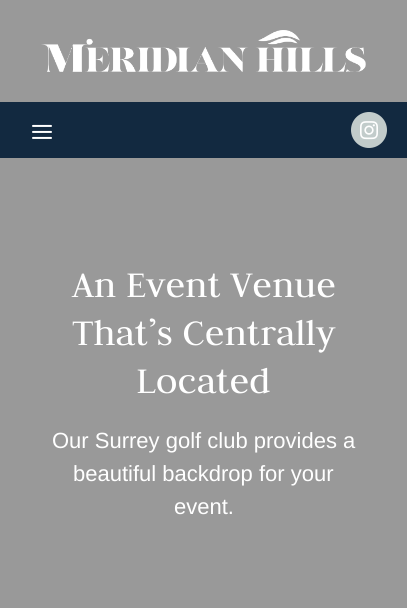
import math
import cairo

surface = cairo.ImageSurface(cairo.FORMAT_RGB24, 407, 608)
c = cairo.Context(surface)
options = cairo.FontOptions()
options.set_hint_metrics(cairo.HINT_METRICS_OFF)
options.set_hint_style(cairo.HINT_STYLE_NONE)
c.set_font_options(options)
c.set_miter_limit(4)
def C(code):
 c.set_source_rgb(*(v / 255 for v in bytes.fromhex(code[-6:])))
def F(family, size, italic, bold):
 c.select_font_face(family, cairo.FONT_SLANT_ITALIC if italic else cairo.FONT_SLANT_NORMAL, cairo.FONT_WEIGHT_BOLD if bold else cairo.FONT_WEIGHT_NORMAL)
 c.set_font_size(size)
def T(x, y, s):
 c.move_to(x, y)
 c.show_text(s)
def R(x, y, w, h):
 c.rectangle(x, y, w, h)
 c.fill()
def I(path, x, y, w, h):
 c.save()
 c.set_source_surface(cairo.ImageSurface.create_from_png(path), x, y)
 c.rectangle(x, y, w, h)
 c.fill()
 c.restore()
C('999999')
c.paint()
I('1.png',41,30,325,42)
C('122940')
R(0,102,407,56)
I('2.png',32,124,20,15)
C('c2cccb')
c.arc(369,130,18,0,2 * math.pi)
c.fill()
I('3.png',360,121,18,19)
F('Judson',40,0,0)
C('ffffff')
T(72,297,'An Event Venue')
T(72,345,'That’s Centrally')
T(136,393,'Located')
F('Liberation Sans',22,0,0)
T(52,448,'Our Surrey golf club provides a')
T(73,481,'beautiful backdrop for your')
T(174,514,'event.')
surface.write_to_png('o.png')
